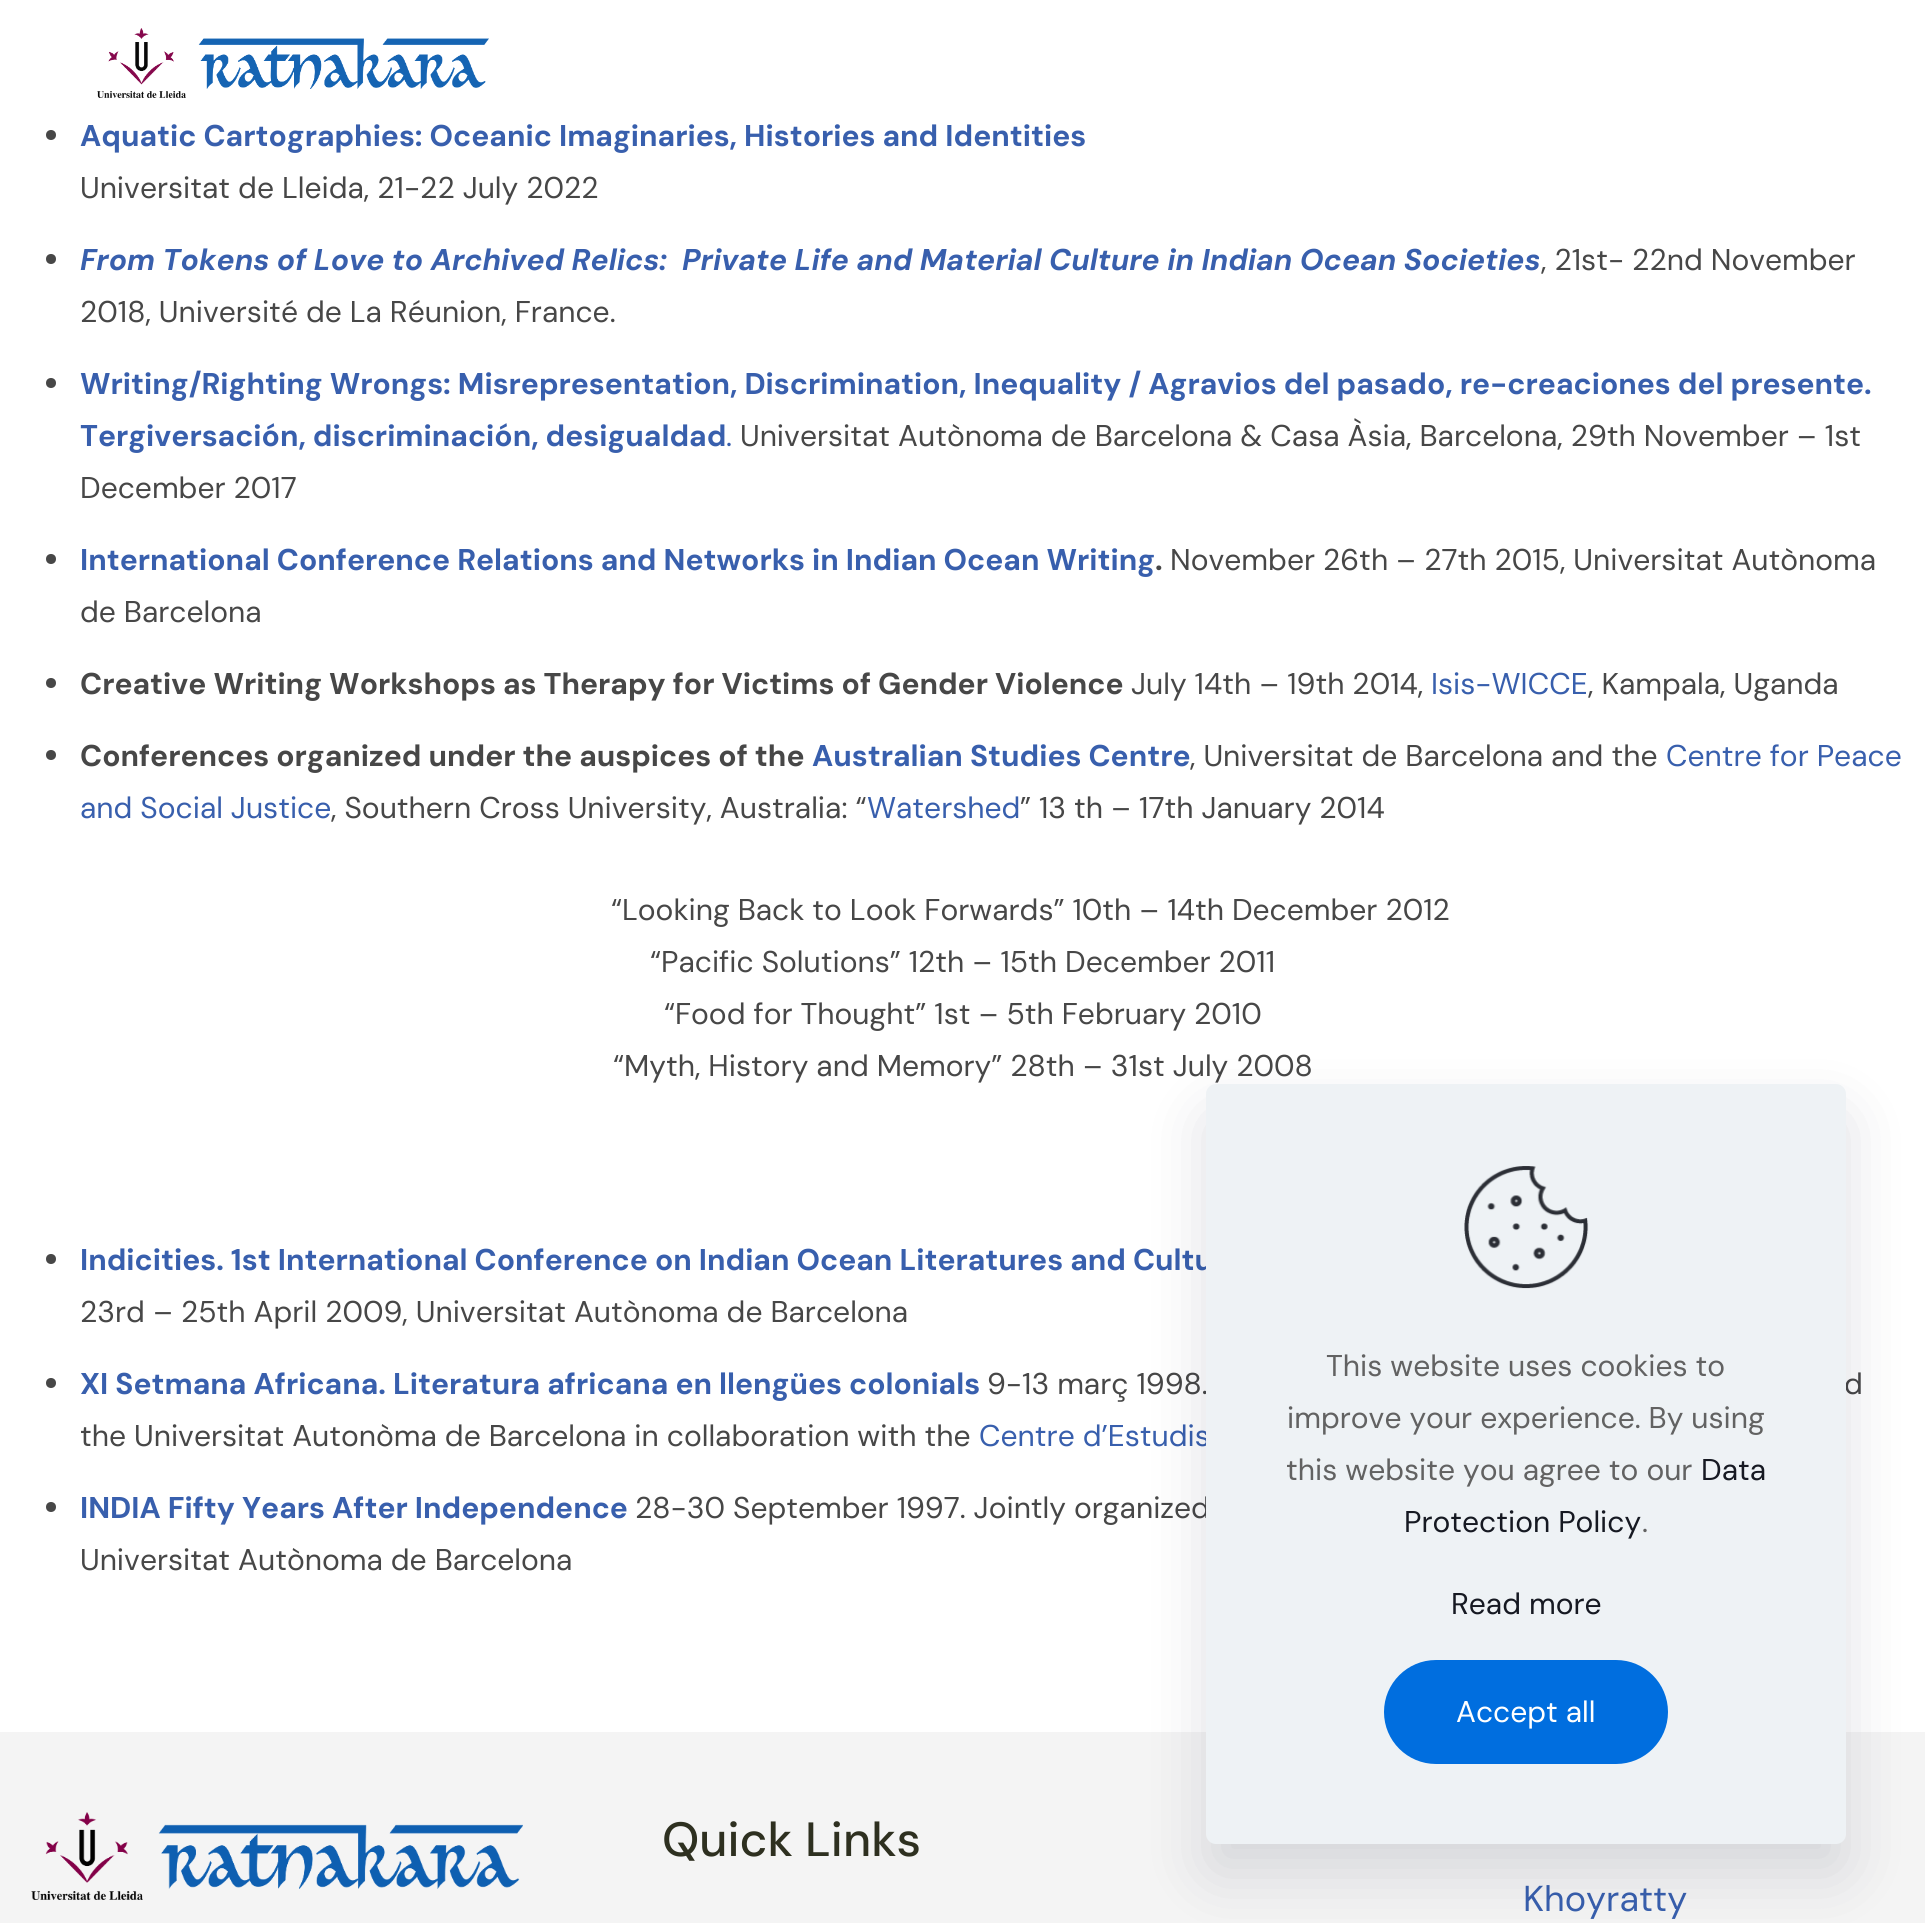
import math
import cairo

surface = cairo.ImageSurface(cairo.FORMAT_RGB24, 1925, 1923)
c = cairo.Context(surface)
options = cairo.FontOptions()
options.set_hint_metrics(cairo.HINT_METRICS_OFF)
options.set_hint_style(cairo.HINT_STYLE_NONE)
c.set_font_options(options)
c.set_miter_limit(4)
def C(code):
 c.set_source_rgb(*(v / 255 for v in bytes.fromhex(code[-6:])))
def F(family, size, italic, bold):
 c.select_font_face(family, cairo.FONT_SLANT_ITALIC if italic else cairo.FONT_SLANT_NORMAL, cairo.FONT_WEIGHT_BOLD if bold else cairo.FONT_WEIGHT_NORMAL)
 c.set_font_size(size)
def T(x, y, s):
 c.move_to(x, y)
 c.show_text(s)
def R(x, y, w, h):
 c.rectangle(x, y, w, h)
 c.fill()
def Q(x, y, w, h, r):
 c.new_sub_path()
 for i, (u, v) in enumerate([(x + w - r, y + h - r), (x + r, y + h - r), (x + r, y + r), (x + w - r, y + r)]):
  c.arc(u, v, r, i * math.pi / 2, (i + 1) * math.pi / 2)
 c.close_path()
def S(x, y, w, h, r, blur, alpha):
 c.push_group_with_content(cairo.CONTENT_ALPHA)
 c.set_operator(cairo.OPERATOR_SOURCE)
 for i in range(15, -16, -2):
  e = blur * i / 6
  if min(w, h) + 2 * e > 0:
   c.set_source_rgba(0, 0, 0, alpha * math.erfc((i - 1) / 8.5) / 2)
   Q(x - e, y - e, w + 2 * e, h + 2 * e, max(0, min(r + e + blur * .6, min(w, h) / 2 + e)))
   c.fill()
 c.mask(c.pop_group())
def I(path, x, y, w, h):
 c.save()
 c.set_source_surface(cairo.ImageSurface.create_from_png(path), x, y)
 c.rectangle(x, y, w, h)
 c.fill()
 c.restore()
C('ffffff')
c.paint()
I('1.png',97,28,392,70)
C('474747')
c.arc(51,135,5,0,2 * math.pi)
c.fill()
F('DM Sans',30,0,1)
C('385fad')
T(80,146,'Aquatic Cartographies: Oceanic Imaginaries, Histories and Identities')
F('DM Sans',30,0,0)
C('474747')
T(80,198,'Universitat de Lleida, 21-22 July 2022')
c.new_path()
c.arc(51,259,5,0,2 * math.pi)
c.fill()
F('DM Sans',30,1,1)
C('385fad')
T(80,270,'From Tokens of Love to Archived Relics:  Private Life and Material Culture in Indian Ocean Societies')
F('DM Sans',30,0,0)
C('474747')
T(1541,270,', 21st- 22nd November')
T(80,322,'2018, Université de La Réunion, France.')
c.new_path()
c.arc(51,383,5,0,2 * math.pi)
c.fill()
F('DM Sans',30,0,1)
C('385fad')
T(80,394,'Writing/Righting Wrongs: Misrepresentation, Discrimination, Inequality / Agravios del pasado, re-creaciones del presente.')
T(80,446,'Tergiversación, discriminación, desigualdad')
F('DM Sans',30,0,0)
T(726,446,'.')
C('474747')
T(740,446,'Universitat Autònoma de Barcelona & Casa Àsia, Barcelona, 29th November – 1st')
T(80,498,'December 2017')
c.new_path()
c.arc(51,559,5,0,2 * math.pi)
c.fill()
F('DM Sans',30,0,1)
C('385fad')
T(80,570,'International Conference Relations and Networks in Indian Ocean Writing')
F('DM Sans',30,0,0)
C('474747')
T(1170,570,'November 26th – 27th 2015, Universitat Autònoma')
F('DM Sans',30,0,1)
T(1155,570,'.')
F('DM Sans',30,0,0)
T(80,622,'de Barcelona')
c.new_path()
c.arc(51,683,5,0,2 * math.pi)
c.fill()
F('DM Sans',30,0,1)
T(80,694,'Creative Writing Workshops as Therapy for Victims of Gender Violence')
F('DM Sans',30,0,0)
T(1131,694,'July 14th – 19th 2014,')
C('385fad')
T(1431,694,'Isis-WICCE')
C('474747')
T(1588,694,', Kampala, Uganda')
c.new_path()
c.arc(51,755,5,0,2 * math.pi)
c.fill()
F('DM Sans',30,0,1)
T(80,766,'Conferences organized under the auspices of the')
C('385fad')
T(812,766,'Australian Studies Centre')
F('DM Sans',30,0,0)
C('474747')
T(1190,766,', Universitat de Barcelona and the')
C('385fad')
T(1666,766,'Centre for Peace')
T(80,818,'and Social Justice')
C('474747')
T(331,818,', Southern Cross University, Australia: “')
C('385fad')
T(867,818,'Watershed')
C('474747')
T(1020,818,'” 13 th – 17th January 2014')
T(611,920,'“Looking Back to Look Forwards” 10th – 14th December 2012')
T(650,972,'“Pacific Solutions” 12th – 15th December 2011')
T(664,1024,'“Food for Thought” 1st – 5th February 2010')
T(613,1076,'“Myth, History and Memory” 28th – 31st July 2008')
c.new_path()
c.arc(51,1259,5,0,2 * math.pi)
c.fill()
F('DM Sans',30,0,1)
C('385fad')
T(80,1270,'Indicities. 1st International Conference on Indian Ocean Literatures and Cultu')
F('DM Sans',30,0,0)
C('474747')
T(80,1322,'23rd – 25th April 2009, Universitat Autònoma de Barcelona')
c.new_path()
c.arc(51,1383,5,0,2 * math.pi)
c.fill()
F('DM Sans',30,0,1)
C('385fad')
T(80,1394,'XI Setmana Africana. Literatura africana en llengües colonials')
F('DM Sans',30,0,0)
C('474747')
T(987,1394,'9-13 març 1998.')
T(1844,1394,'d')
T(80,1446,'the Universitat Autonòma de Barcelona in collaboration with the')
C('385fad')
T(979,1446,'Centre d’Estudis')
C('474747')
c.new_path()
c.arc(51,1507,5,0,2 * math.pi)
c.fill()
F('DM Sans',30,0,1)
C('385fad')
T(80,1518,'INDIA Fifty Years After Independence')
F('DM Sans',30,0,0)
C('474747')
T(635,1518,'28-30 September 1997. Jointly organized')
T(80,1570,'Universitat Autònoma de Barcelona')
C('f4f4f4')
R(0,1732,1925,191)
I('2.png',31,1812,492,88)
F('DM Sans Medium',48,0,0)
C('2e3020')
T(662,1856,'Quick Links')
F('DM Sans',36,0,0)
C('385fad')
T(1523,1911,'Khoyratty')
C('010727')
S(1206,1114,640,760,10,30,.13)
C('eef2f5')
Q(1206,1084,640,760,10)
c.fill()
I('3.png',1464,1166,125,123)
F('DM Sans',30,0,0)
C('626262')
T(1326,1376,'This website uses cookies to')
T(1287,1428,'improve your experience. By using')
T(1286,1480,'this website you agree to our')
C('161922')
T(1701,1480,'Data')
T(1404,1532,'Protection Policy')
C('626262')
T(1642,1532,'.')
C('161922')
T(1451,1614,'Read more')
C('006edf')
Q(1384,1660,284,104,52)
c.fill()
C('ffffff')
T(1456,1722,'Accept all')
surface.write_to_png('o.png')
